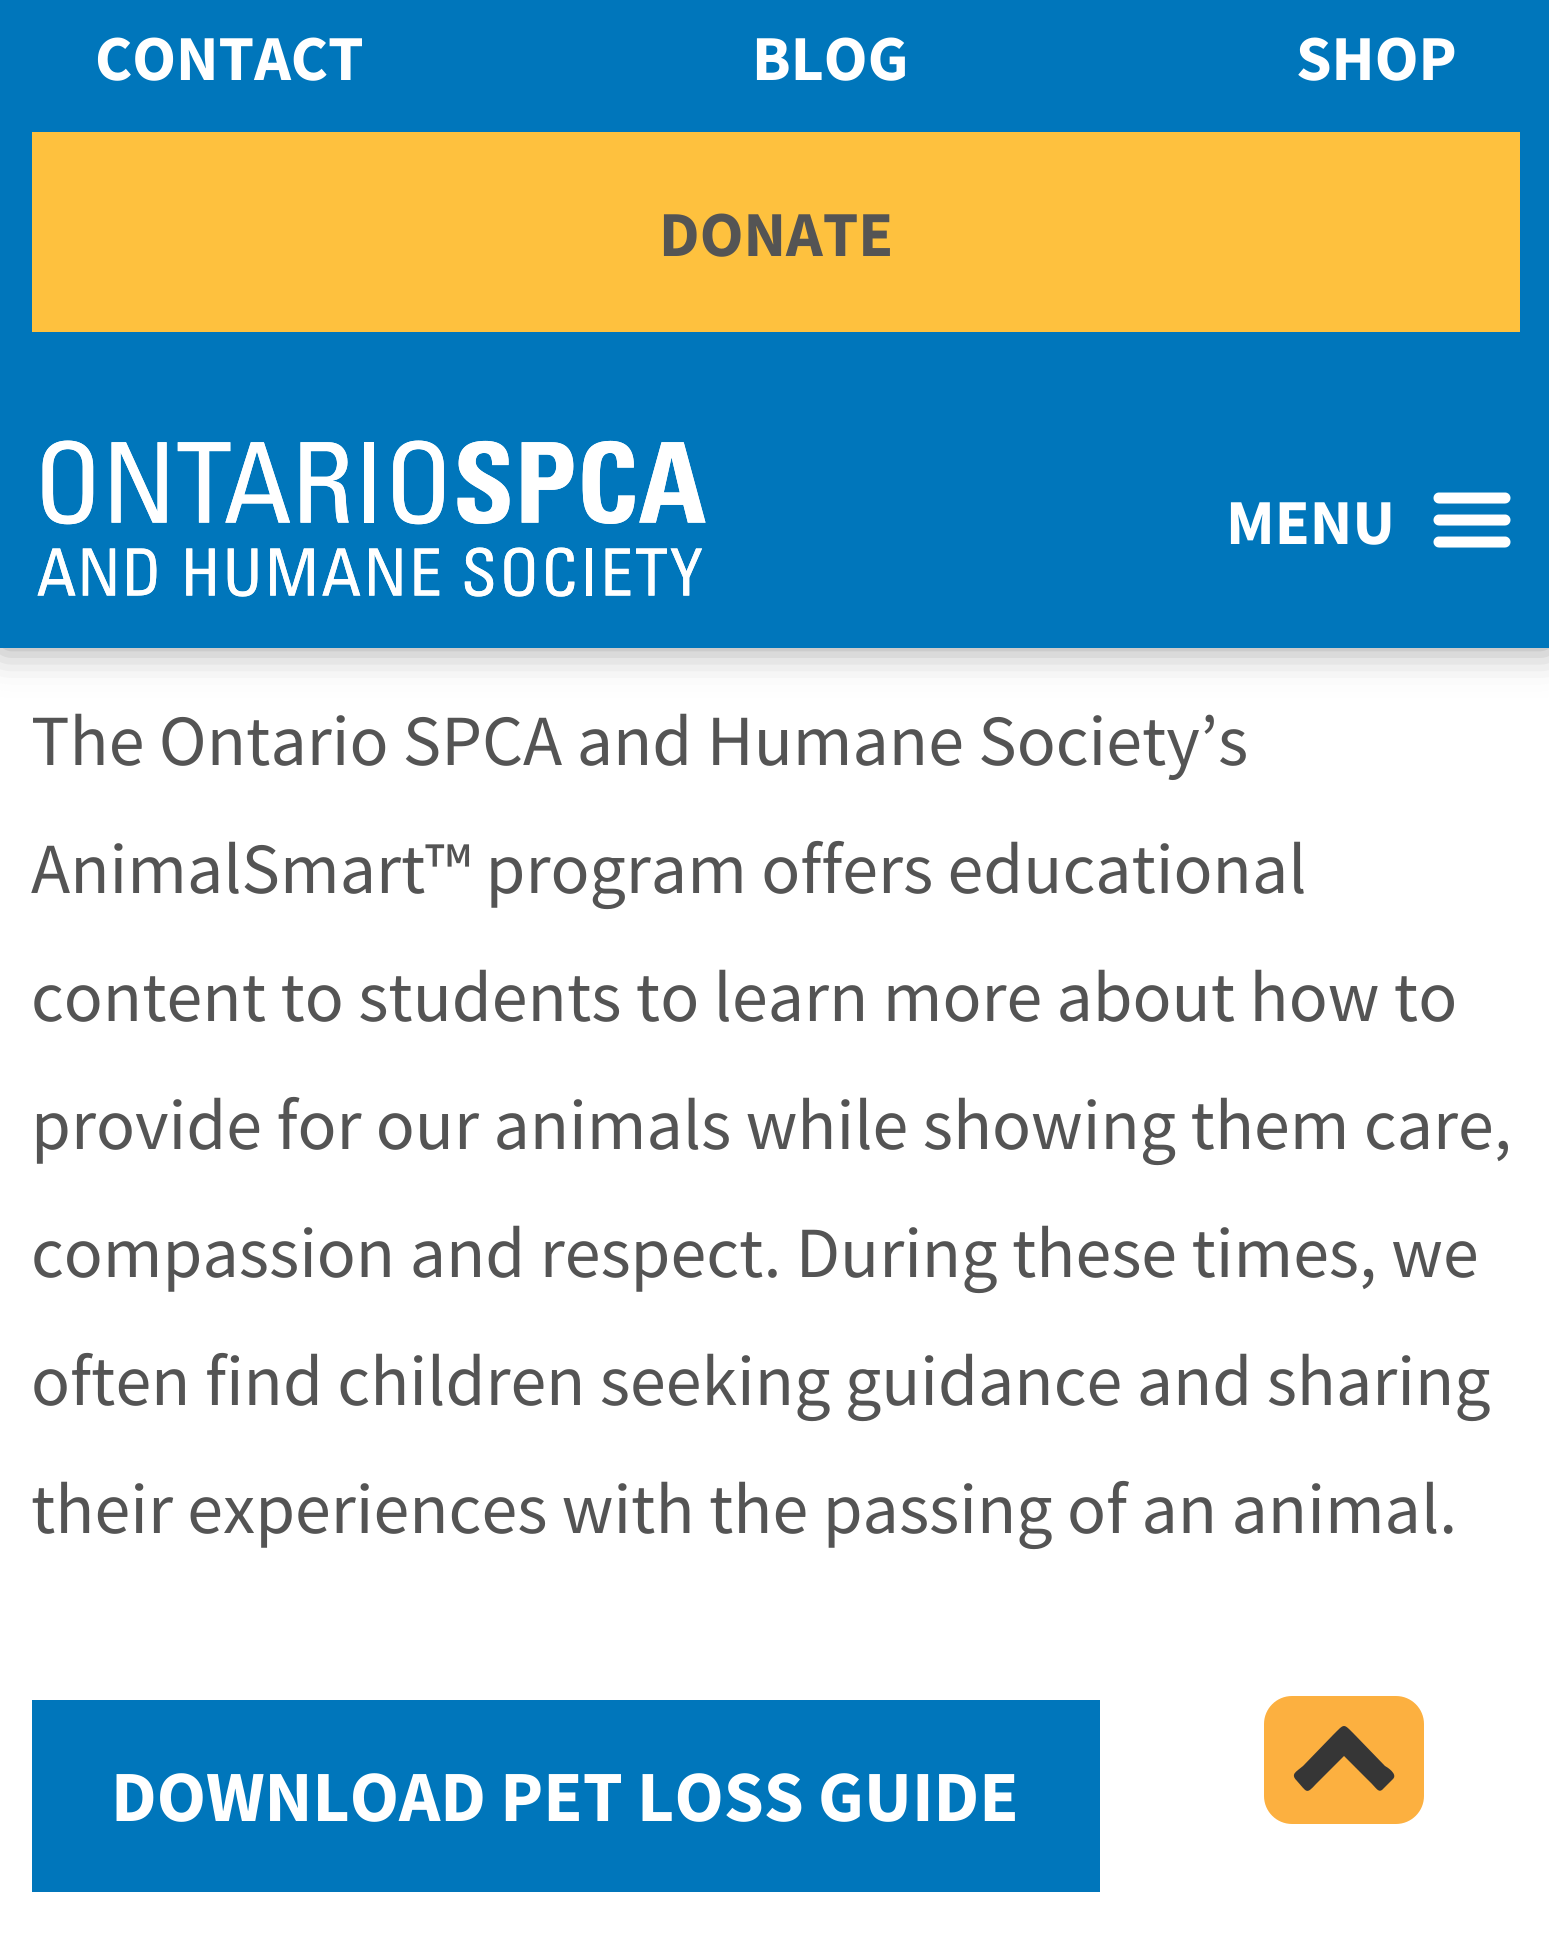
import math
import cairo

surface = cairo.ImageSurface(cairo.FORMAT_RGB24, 1549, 1952)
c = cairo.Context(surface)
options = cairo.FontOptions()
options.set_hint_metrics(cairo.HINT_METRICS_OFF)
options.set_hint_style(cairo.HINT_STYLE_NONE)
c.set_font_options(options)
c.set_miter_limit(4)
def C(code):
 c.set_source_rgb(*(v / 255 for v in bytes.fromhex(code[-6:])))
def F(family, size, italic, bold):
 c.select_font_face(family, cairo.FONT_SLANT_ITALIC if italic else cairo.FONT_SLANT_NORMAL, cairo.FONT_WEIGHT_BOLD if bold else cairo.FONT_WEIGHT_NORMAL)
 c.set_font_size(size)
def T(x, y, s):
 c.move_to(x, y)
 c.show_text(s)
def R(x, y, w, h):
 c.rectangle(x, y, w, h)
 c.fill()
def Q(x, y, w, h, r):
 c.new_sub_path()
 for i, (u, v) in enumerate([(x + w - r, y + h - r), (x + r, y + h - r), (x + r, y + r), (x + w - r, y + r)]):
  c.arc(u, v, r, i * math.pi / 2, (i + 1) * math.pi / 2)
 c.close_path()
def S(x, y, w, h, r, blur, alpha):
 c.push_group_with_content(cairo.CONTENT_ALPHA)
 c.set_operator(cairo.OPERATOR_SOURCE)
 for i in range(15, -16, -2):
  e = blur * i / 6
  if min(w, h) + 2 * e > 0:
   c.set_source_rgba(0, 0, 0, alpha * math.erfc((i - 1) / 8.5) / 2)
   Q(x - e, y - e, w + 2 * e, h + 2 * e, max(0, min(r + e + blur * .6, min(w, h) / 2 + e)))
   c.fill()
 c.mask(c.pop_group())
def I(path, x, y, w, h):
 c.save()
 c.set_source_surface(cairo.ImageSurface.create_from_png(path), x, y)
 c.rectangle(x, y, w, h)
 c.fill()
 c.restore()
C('ffffff')
c.paint()
C('000000')
S(0,0,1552,648,0,20,.4)
C('0076bb')
R(0,0,1549,648)
F('Source Sans Pro',64,0,1)
C('ffffff')
T(95,80,'CONTACT')
T(752,80,'BLOG')
T(1296,80,'SHOP')
C('fec13e')
R(32,132,1488,200)
C('545454')
T(659,256,'DONATE')
I('1.png',37,440,669,157)
C('ffffff')
T(1226,544,'MENU')
I('2.png',1433,492,78,56)
F('Source Sans Pro',72,0,0)
C('545454')
T(31,765,'The Ontario SPCA and Humane Society’s')
T(31,893,'AnimalSmart™ program offers educational')
T(31,1021,'content to students to learn more about how to')
T(31,1149,'provide for our animals while showing them care,')
T(31,1277,'compassion and respect. During these times, we')
T(31,1405,'often find children seeking guidance and sharing')
T(31,1533,'their experiences with the passing of an animal.')
C('0076bb')
R(32,1700,1068,192)
F('Source Sans Pro',72,0,1)
C('ffffff')
T(111,1821,'DOWNLOAD PET LOSS GUIDE')
C('fcb040')
Q(1264,1696,160,128,28)
c.fill()
C('363636')
c.new_path()
c.move_to(1393,1779)
c.line_to(1384,1788)
c.curve_to(1379,1794,1377,1789,1372,1784)
c.line_to(1344,1756)
c.line_to(1316,1784)
c.curve_to(1306,1795,1307,1792,1297,1781)
c.curve_to(1290,1774,1296,1772,1303,1766)
c.line_to(1333,1735)
c.curve_to(1345,1723,1343,1723,1355,1735)
c.line_to(1385,1766)
c.curve_to(1387,1767,1398,1774,1393,1779)
c.close_path()
c.fill()
surface.write_to_png('o.png')
